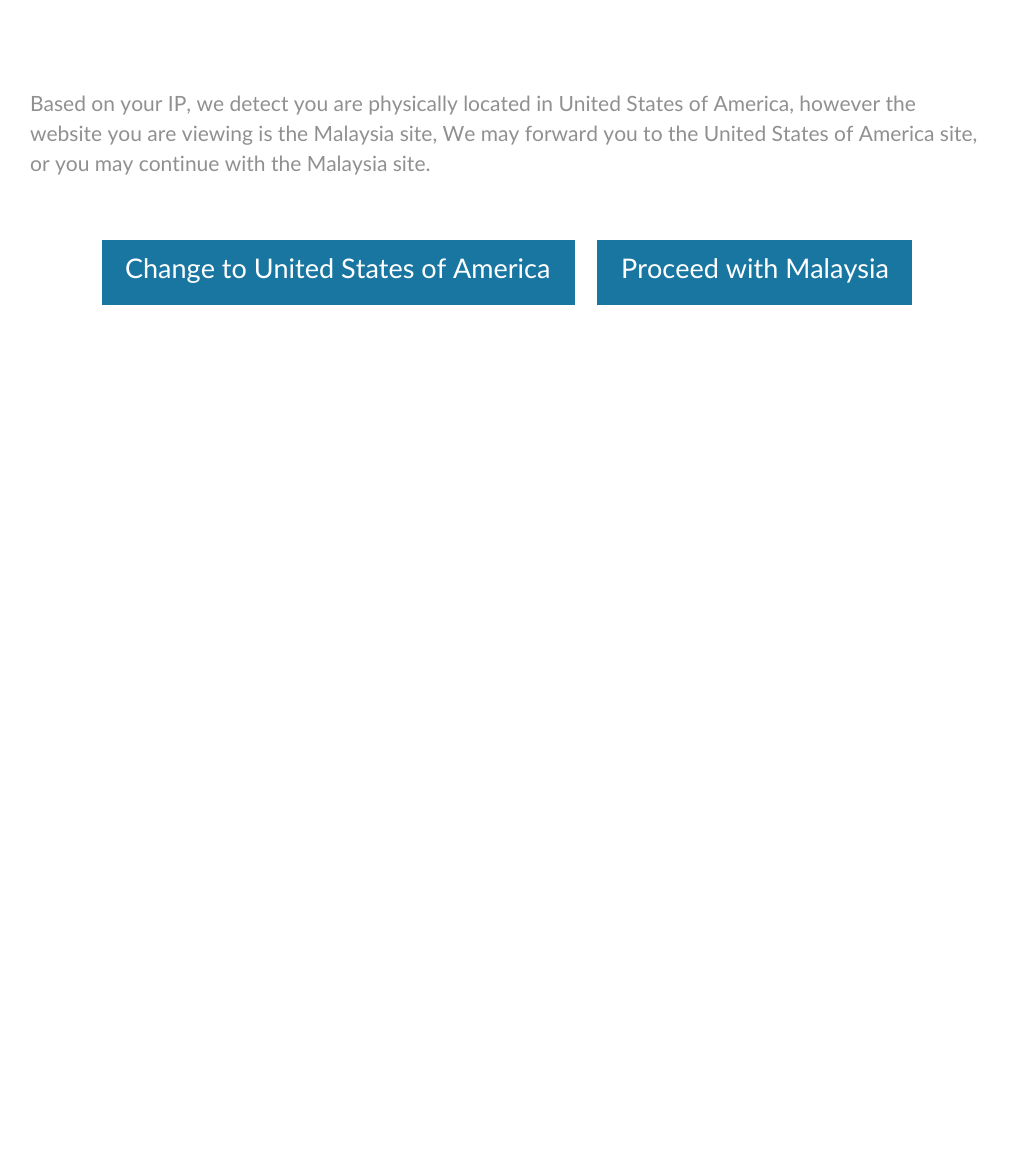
import math
import cairo

surface = cairo.ImageSurface(cairo.FORMAT_RGB24, 1013, 1158)
c = cairo.Context(surface)
options = cairo.FontOptions()
options.set_hint_metrics(cairo.HINT_METRICS_OFF)
options.set_hint_style(cairo.HINT_STYLE_NONE)
c.set_font_options(options)
c.set_miter_limit(4)
def C(code):
 c.set_source_rgb(*(v / 255 for v in bytes.fromhex(code[-6:])))
def F(family, size, italic, bold):
 c.select_font_face(family, cairo.FONT_SLANT_ITALIC if italic else cairo.FONT_SLANT_NORMAL, cairo.FONT_WEIGHT_BOLD if bold else cairo.FONT_WEIGHT_NORMAL)
 c.set_font_size(size)
def T(x, y, s):
 c.move_to(x, y)
 c.show_text(s)
def R(x, y, w, h):
 c.rectangle(x, y, w, h)
 c.fill()
C('ffffff')
c.paint()
F('Lato',21,0,0)
C('909090')
T(30,111,'Based on your IP, we detect you are physically located in United States of America, however the')
T(30,141,'website you are viewing is the Malaysia site, We may forward you to the United States of America site,')
T(30,171,'or you may continue with the Malaysia site.')
C('1976a1')
R(102,240,473,65)
F('Lato',27,0,0)
C('ffffff')
T(125,278,'Change to United States of America')
C('1976a1')
R(597,240,315,65)
C('ffffff')
T(621,278,'Proceed with Malaysia')
surface.write_to_png('o.png')
